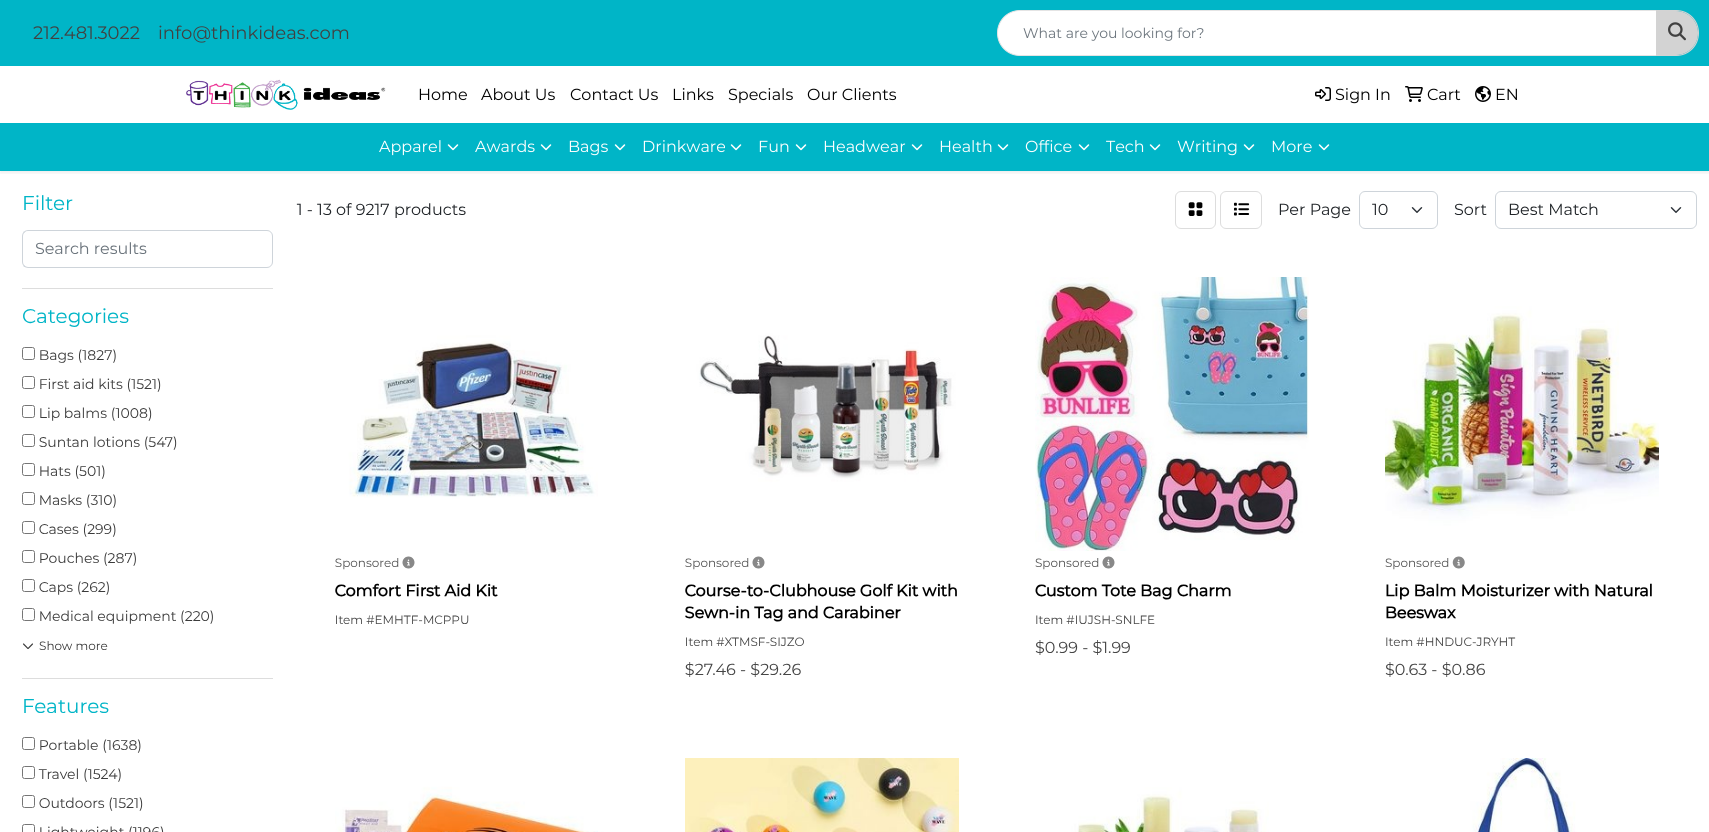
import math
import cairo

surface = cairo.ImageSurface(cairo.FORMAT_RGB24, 1709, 832)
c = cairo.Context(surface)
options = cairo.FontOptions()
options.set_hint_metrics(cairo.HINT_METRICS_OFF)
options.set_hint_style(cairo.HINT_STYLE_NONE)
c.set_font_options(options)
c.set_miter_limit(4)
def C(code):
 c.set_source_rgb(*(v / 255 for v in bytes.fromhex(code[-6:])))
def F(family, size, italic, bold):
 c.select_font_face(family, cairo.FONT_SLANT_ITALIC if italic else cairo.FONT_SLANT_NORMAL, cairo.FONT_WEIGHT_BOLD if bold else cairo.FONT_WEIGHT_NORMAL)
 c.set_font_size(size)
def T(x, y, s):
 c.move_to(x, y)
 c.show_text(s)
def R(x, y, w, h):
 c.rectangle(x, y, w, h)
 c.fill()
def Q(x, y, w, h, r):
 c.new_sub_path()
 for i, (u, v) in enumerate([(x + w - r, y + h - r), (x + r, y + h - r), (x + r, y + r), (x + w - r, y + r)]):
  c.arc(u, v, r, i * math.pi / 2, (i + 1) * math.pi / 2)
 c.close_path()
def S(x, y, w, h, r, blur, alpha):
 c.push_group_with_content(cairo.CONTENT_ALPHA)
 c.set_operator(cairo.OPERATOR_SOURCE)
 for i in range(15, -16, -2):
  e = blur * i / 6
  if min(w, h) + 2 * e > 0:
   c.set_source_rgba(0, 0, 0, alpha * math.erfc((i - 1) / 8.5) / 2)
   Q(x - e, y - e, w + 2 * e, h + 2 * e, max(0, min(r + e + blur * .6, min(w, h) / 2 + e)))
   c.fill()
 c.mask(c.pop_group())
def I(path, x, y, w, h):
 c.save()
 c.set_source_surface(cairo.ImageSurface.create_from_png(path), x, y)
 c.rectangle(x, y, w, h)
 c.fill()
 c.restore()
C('ffffff')
c.paint()
C('00b5c7')
R(0,0,1709,171)
F('Montserrat Thin',18,0,0)
C('414141')
T(33,39,'212.481.3022')
T(158,39,'info@thinkideas.com')
C('ffffff')
c.new_path()
c.move_to(1020,10.5)
c.line_to(1656.5,10.5)
c.line_to(1656.5,55.5)
c.line_to(1020,55.5)
c.curve_to(1007.5,55.5,997.5,45.5,997.5,33)
c.curve_to(997.5,20.5,1007.5,10.5,1020,10.5)
c.close_path()
c.fill_preserve()
C('e4e4e4')
c.set_line_width(1)
c.stroke()
F('Montserrat Thin',14,0,0)
C('6c757d')
T(1023,38,'What are you looking for?')
C('d3d3d3')
c.new_path()
c.move_to(1656,11)
c.line_to(1676,11)
c.curve_to(1688,11,1698,21,1698,33)
c.curve_to(1698,45,1688,55,1676,55)
c.line_to(1656,55)
c.close_path()
c.fill()
c.set_fill_rule(cairo.FILL_RULE_EVEN_ODD)
c.new_path()
c.move_to(1656,10)
c.line_to(1676,10)
c.curve_to(1689,10,1699,20,1699,33)
c.curve_to(1699,46,1689,56,1676,56)
c.line_to(1656,56)
c.close_path()
c.move_to(1656,11)
c.line_to(1676,11)
c.curve_to(1688,11,1698,21,1698,33)
c.curve_to(1698,45,1688,55,1676,55)
c.line_to(1656,55)
c.close_path()
c.fill()
I('1.png',1668,22,18,19)
C('ffffff')
R(0,66,1709,57)
I('2.png',186,79,200,31)
F('Montserrat Thin',16,0,0)
C('000000')
T(418,100,'Home')
T(481,100,'About Us')
T(570,100,'Contact Us')
T(672,100,'Links')
T(728,100,'Specials')
T(807,100,'Our Clients')
I('3.png',1315,87,16,14)
T(1335,100,'Sign In')
I('4.png',1405,86,18,16)
T(1427,100,'Cart')
I('5.png',1475,86,16,16)
T(1495,100,'EN')
c.save()
c.set_fill_rule(cairo.FILL_RULE_WINDING)
c.rectangle(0,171,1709,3)
c.clip()
C('000000')
S(0,125,1709,48,0,2,.07)
c.restore()
C('ffffff')
T(379,152,'Apparel')
I('6.png',447,144,12,7)
T(475,152,'Awards')
I('6.png',540,144,12,7)
T(568,152,'Bags')
I('6.png',614,144,12,7)
T(642,152,'Drinkware')
I('6.png',730,144,12,7)
T(758,152,'Fun')
I('6.png',795,144,12,7)
T(823,152,'Headwear')
I('6.png',911,144,12,7)
T(939,152,'Health')
I('6.png',997,144,12,7)
T(1025,152,'Office')
I('6.png',1078,144,12,7)
T(1106,152,'Tech')
I('6.png',1149,144,12,7)
T(1177,152,'Writing')
I('6.png',1243,144,12,7)
T(1271,152,'More')
I('6.png',1318,144,12,7)
I('7.png',22,191,1675,641)
surface.write_to_png('o.png')
